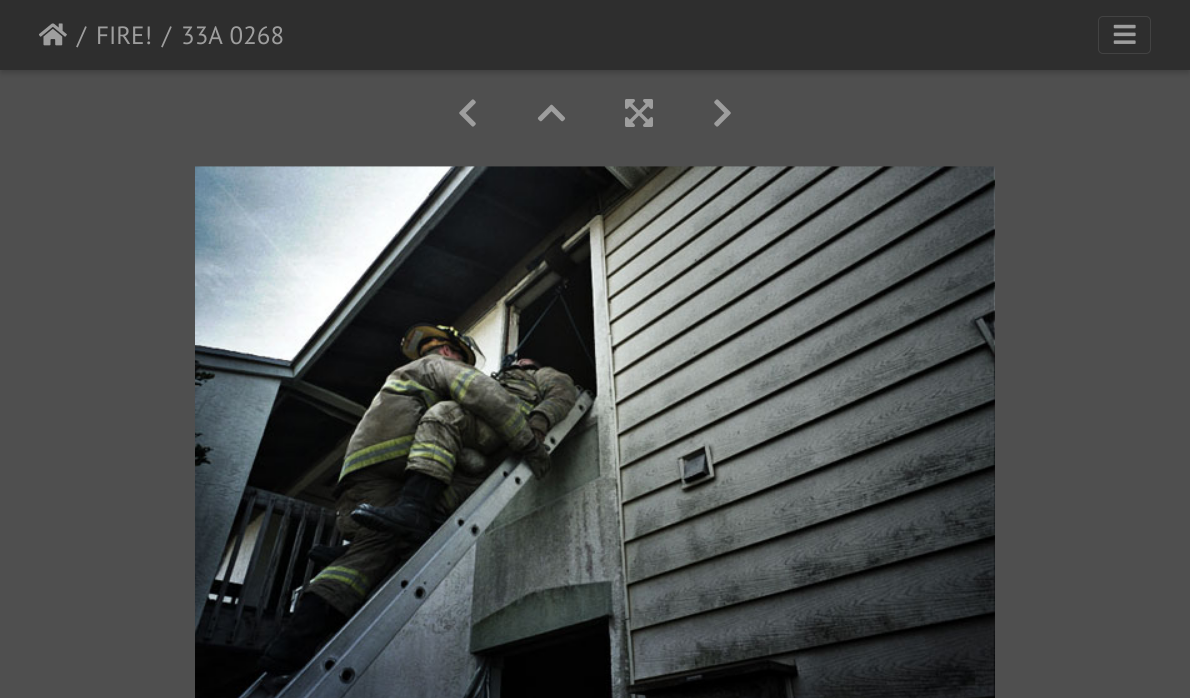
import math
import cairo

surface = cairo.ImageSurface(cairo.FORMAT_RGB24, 1190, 698)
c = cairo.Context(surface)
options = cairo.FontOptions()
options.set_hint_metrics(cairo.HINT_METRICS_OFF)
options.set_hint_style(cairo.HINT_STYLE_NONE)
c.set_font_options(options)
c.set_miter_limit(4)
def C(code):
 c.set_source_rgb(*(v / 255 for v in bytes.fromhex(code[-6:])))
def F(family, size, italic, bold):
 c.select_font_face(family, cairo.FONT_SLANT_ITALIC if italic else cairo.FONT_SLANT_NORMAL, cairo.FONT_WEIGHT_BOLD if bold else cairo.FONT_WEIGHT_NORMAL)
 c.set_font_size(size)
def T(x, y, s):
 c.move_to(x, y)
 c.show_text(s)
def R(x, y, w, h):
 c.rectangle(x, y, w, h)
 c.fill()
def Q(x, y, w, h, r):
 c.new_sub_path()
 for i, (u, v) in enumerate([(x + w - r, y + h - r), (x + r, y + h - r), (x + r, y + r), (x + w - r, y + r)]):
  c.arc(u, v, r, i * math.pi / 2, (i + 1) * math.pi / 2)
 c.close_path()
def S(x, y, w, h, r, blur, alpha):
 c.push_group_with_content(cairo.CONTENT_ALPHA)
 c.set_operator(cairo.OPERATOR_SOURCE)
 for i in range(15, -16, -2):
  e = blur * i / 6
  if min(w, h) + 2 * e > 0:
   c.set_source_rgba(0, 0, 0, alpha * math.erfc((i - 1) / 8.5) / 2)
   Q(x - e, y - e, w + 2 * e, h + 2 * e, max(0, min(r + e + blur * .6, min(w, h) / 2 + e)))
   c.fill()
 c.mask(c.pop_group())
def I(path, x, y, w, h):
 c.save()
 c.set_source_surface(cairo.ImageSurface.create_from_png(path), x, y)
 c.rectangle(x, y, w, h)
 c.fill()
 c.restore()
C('4f4f4f')
c.paint()
C('000000')
S(1,5,1188,68,0,3,.2)
C('2e2e2e')
R(0,0,1190,70)
I('1.png',39,23,28,23)
F('PT Sans',25,0,0)
C('9e9e9e')
T(77,44,'/')
T(96,44,'FIRE!')
T(162,44,'/')
T(181,44,'33A 0268')
Q(1098.5,16.5,52,37,4.5)
C('434343')
c.set_line_width(1)
c.stroke()
I('2.png',1113,24,23,20)
I('3.png',459,99,17,28)
I('4.png',537,104,29,18)
I('5.png',625,99,28,28)
I('6.png',714,99,17,28)
I('7.png',195,166,800,532)
surface.write_to_png('o.png')
